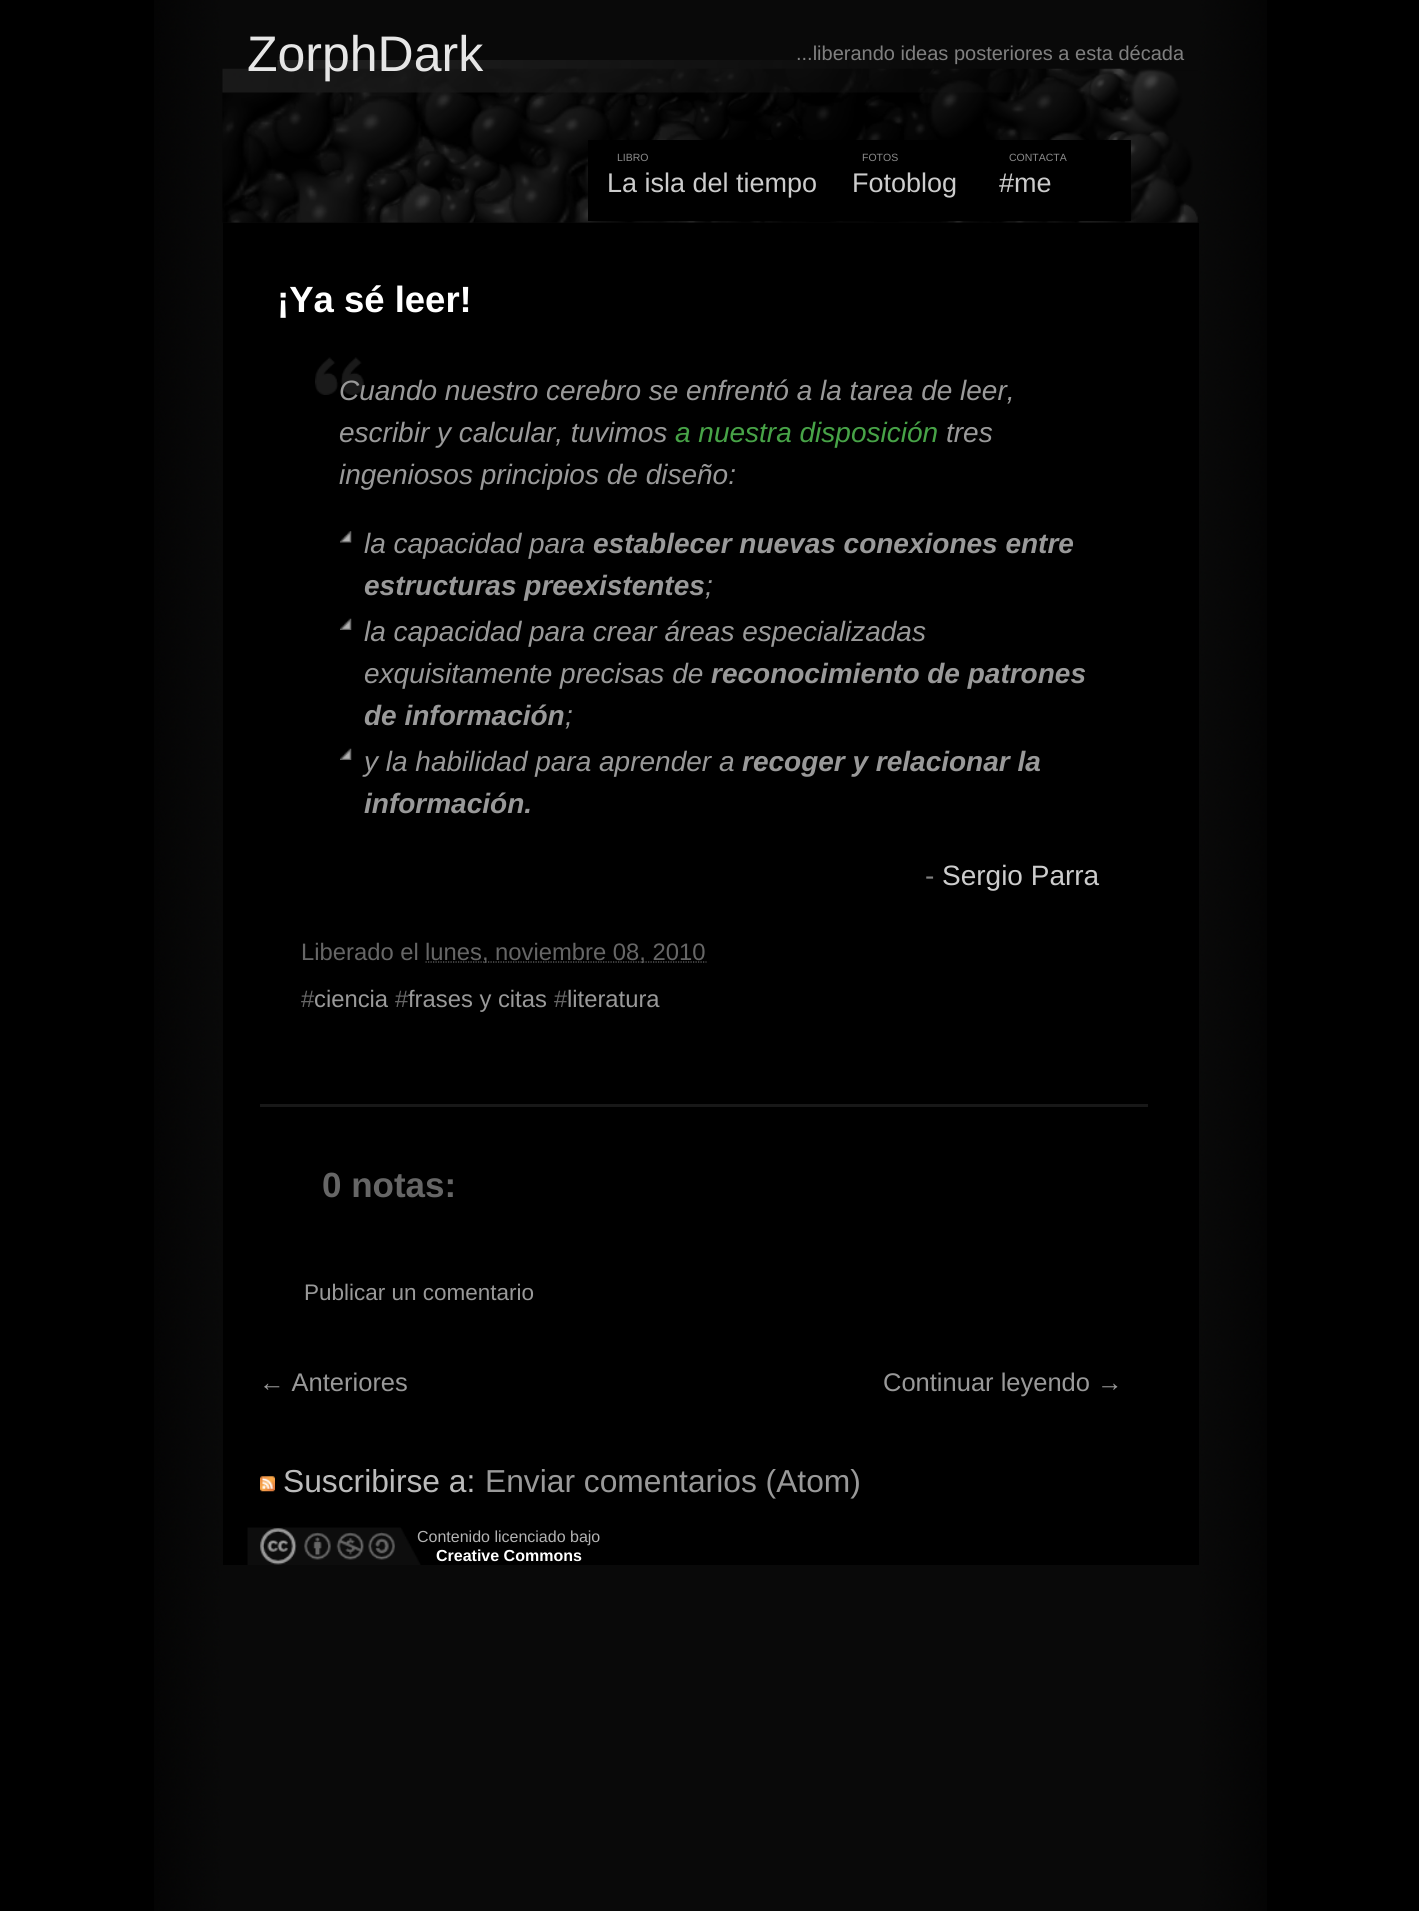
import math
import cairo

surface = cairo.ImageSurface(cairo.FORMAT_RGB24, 1419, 1911)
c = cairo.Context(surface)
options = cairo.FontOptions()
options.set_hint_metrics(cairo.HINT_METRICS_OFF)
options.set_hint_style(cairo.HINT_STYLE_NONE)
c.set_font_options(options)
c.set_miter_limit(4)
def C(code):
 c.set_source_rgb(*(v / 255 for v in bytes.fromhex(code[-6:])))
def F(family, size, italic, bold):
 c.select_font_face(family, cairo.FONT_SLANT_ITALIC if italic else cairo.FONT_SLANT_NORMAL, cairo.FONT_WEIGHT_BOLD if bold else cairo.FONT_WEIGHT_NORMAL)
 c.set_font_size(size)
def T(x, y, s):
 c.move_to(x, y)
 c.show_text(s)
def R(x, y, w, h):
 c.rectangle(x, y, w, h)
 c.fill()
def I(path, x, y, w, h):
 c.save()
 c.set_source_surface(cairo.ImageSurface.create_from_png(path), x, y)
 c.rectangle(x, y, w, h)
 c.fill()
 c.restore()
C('000000')
c.paint()
I('1.png',154,0,1113,1911)
C('000000')
R(223,223,976,1342)
I('2.png',222,60,976,163)
F('Liberation Sans',50,0,0)
C('e6e6e6')
T(247,71,'ZorphDark')
F('Liberation Sans',20,0,0)
C('808080')
T(796,60,'...liberando ideas posteriores a esta década')
C('000000')
R(588,140,543,81)
F('Liberation Sans',10.5,0,0)
C('8b8b8b')
T(617,161,'LIBRO')
F('Liberation Sans',27,0,0)
C('cccccc')
T(607,192,'La isla del tiempo')
F('Liberation Sans',10.5,0,0)
C('8b8b8b')
T(862,161,'FOTOS')
F('Liberation Sans',27,0,0)
C('cccccc')
T(852,192,'Fotoblog')
F('Liberation Sans',10.5,0,0)
C('8b8b8b')
T(1009,161,'CONTACTA')
F('Liberation Sans',27,0,0)
C('cccccc')
T(999,192,'#me')
C('181818')
R(260,1104,888,3)
F('Liberation Sans',36.5,0,1)
C('ffffff')
T(277,312,'¡Ya sé leer!')
I('3.png',315,357,49,38)
F('Liberation Sans',28,1,0)
C('999999')
T(339,400,'Cuando nuestro cerebro se enfrentó a la tarea de leer,')
T(339,442,'escribir y calcular, tuvimos')
C('47a347')
T(675,442,'a nuestra disposición')
C('999999')
T(946,442,'tres')
T(339,484,'ingeniosos principios de diseño:')
I('4.png',340,531,12,12)
T(364,553,'la capacidad para')
F('Liberation Sans',28,1,1)
T(593,553,'establecer nuevas conexiones entre')
T(364,595,'estructuras preexistentes')
F('Liberation Sans',28,1,0)
T(705,595,';')
I('5.png',340,618,12,12)
T(364,641,'la capacidad para crear áreas especializadas')
T(364,683,'exquisitamente precisas de')
F('Liberation Sans',28,1,1)
T(711,683,'reconocimiento de patrones')
T(364,725,'de información')
F('Liberation Sans',28,1,0)
T(565,725,';')
I('5.png',340,748,12,12)
T(364,771,'y la habilidad para aprender a')
F('Liberation Sans',28,1,1)
T(742,771,'recoger y relacionar la')
T(364,813,'información.')
F('Liberation Sans',28,0,0)
C('808080')
T(925,885,'-')
C('cccccc')
T(942,885,'Sergio Parra')
F('Liberation Sans',23.8,0,0)
C('666666')
T(301,960,'Liberado el')
c.new_path()
c.move_to(425.5,962)
c.line_to(706.5,962)
c.set_line_width(1.2)
c.set_dash([1.25,1.25])
c.stroke()
T(425,960,'lunes, noviembre 08, 2010')
T(301,1007,'#')
C('999999')
T(314,1007,'ciencia')
C('666666')
T(395,1007,'#')
C('999999')
T(408,1007,'frases y citas')
C('666666')
T(554,1007,'#')
C('999999')
T(567,1007,'literatura')
F('Liberation Sans',35,0,1)
C('666666')
T(322,1197,'0 notas:')
F('Liberation Sans',22.5,0,0)
C('999999')
T(304,1300,'Publicar un comentario')
F('Liberation Sans',25.5,0,0)
T(259,1391,'← Anteriores')
T(883,1391,'Continuar leyendo →')
I('6.png',260,1476,15,16)
F('Liberation Sans',31.75,0,0)
C('bbbbbb')
T(283,1492,'Suscribirse a:')
C('999999')
T(485,1492,'Enviar comentarios (Atom)')
I('7.png',247,1527,174,38)
F('Liberation Sans',16,0,0)
C('b3b3b3')
T(417,1542,'Contenido licenciado bajo')
F('Liberation Sans',16,0,1)
C('ffffff')
T(436,1561,'Creative Commons')
surface.write_to_png('o.png')
